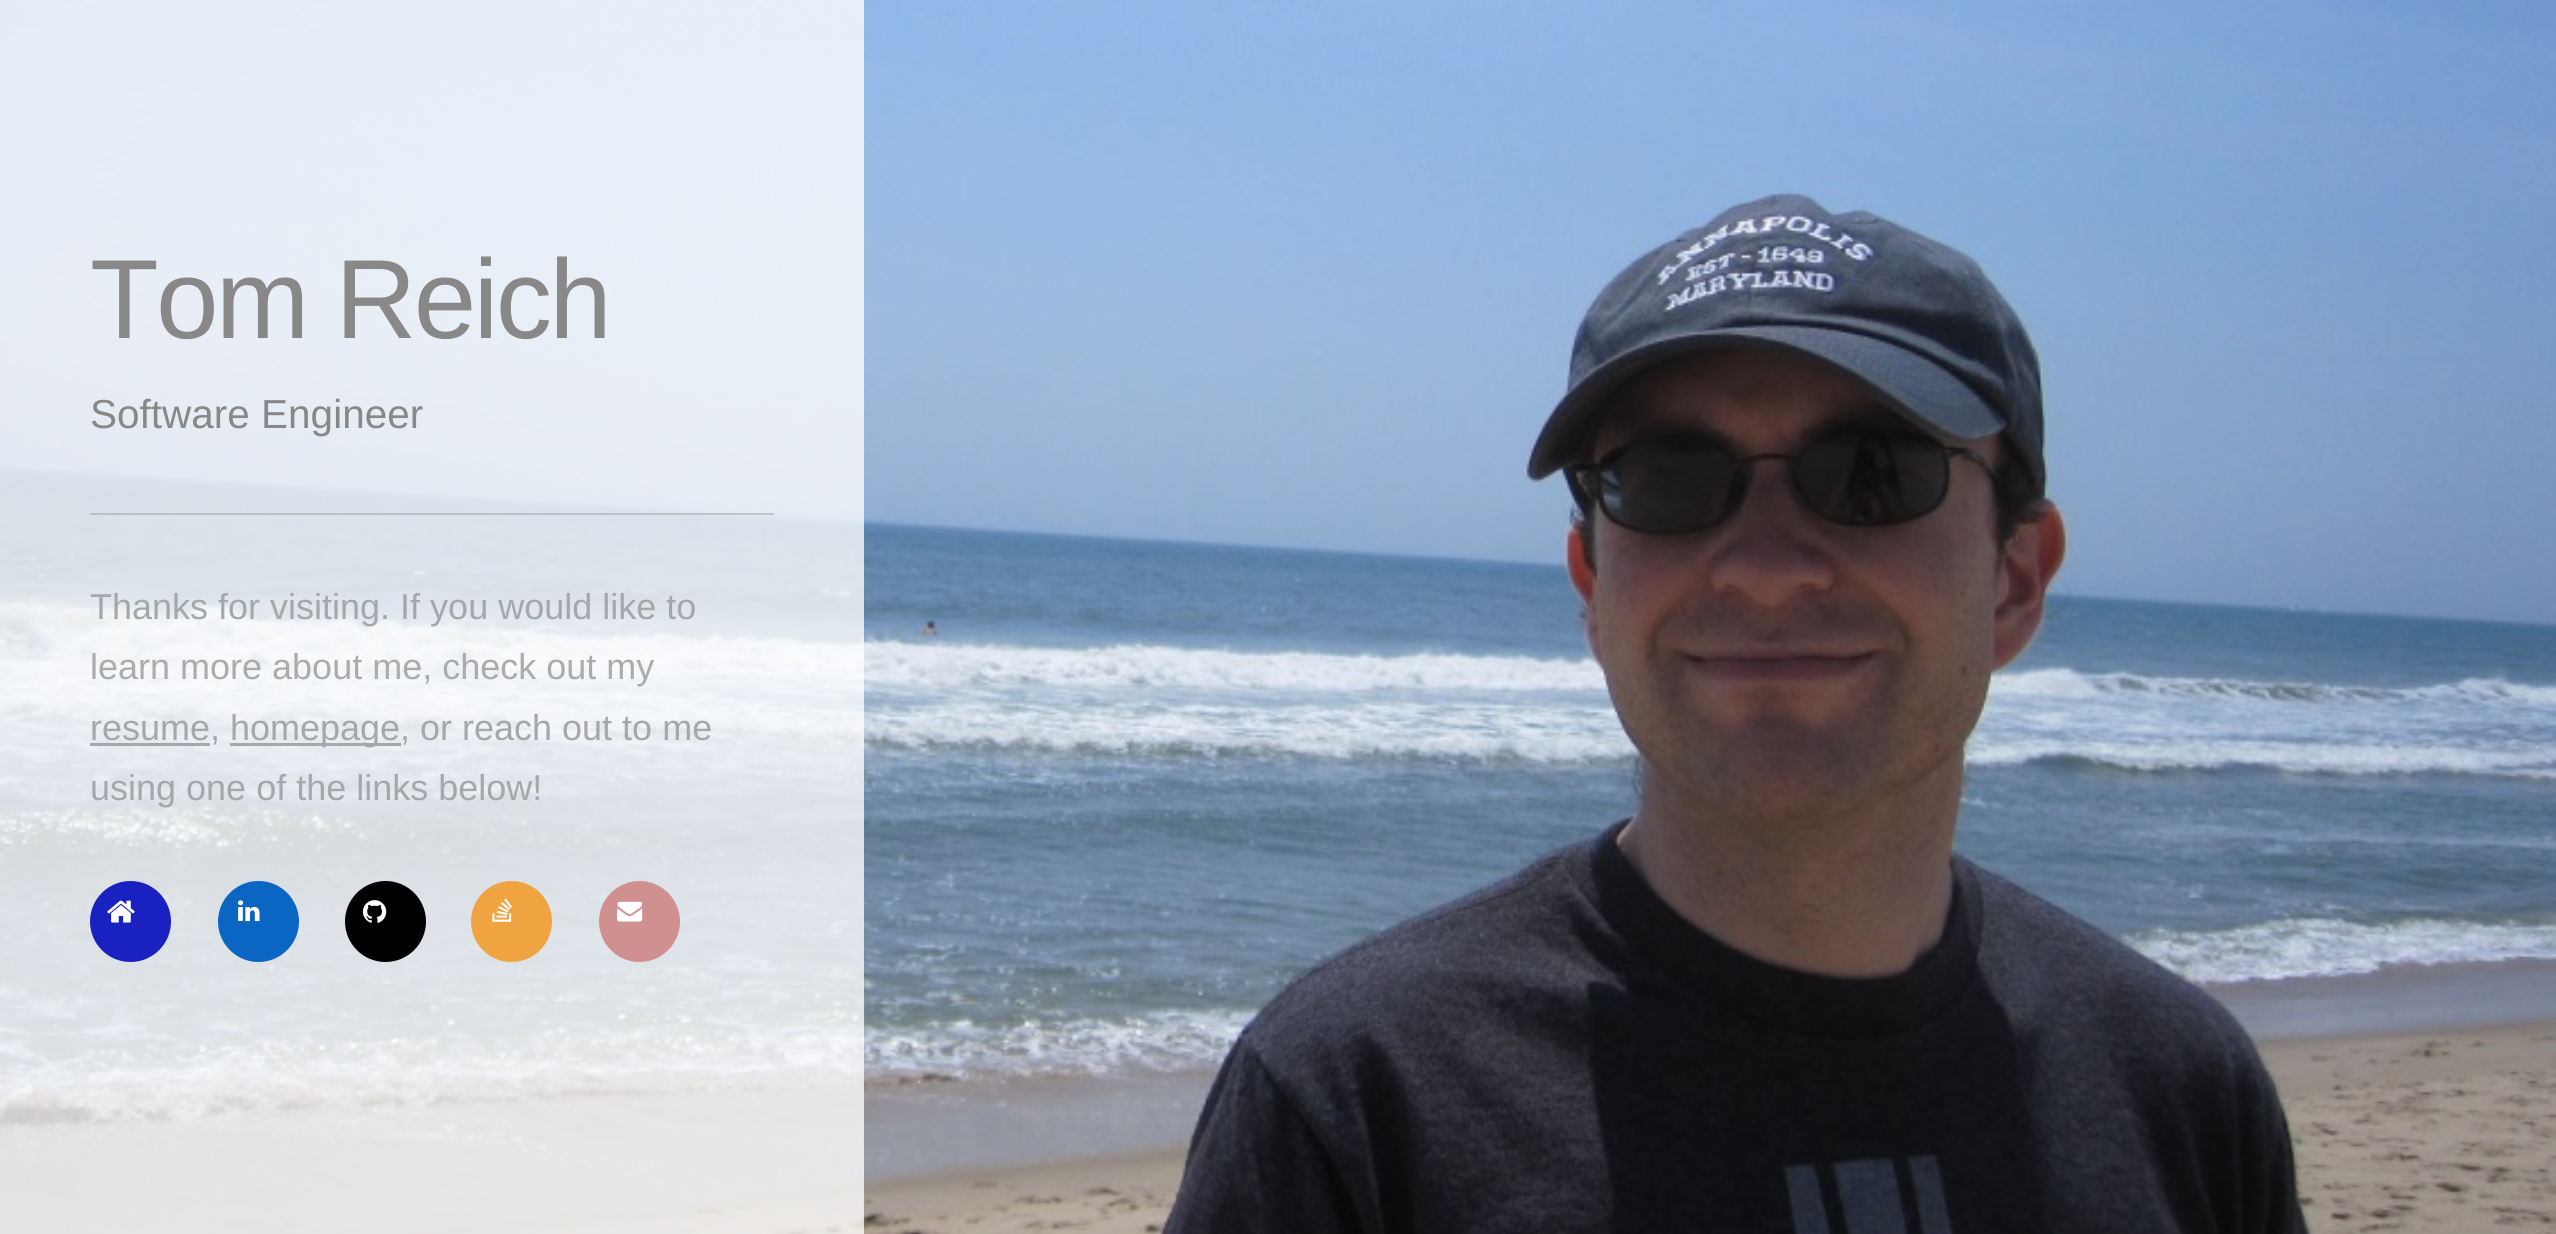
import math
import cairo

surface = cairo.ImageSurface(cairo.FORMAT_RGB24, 2556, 1234)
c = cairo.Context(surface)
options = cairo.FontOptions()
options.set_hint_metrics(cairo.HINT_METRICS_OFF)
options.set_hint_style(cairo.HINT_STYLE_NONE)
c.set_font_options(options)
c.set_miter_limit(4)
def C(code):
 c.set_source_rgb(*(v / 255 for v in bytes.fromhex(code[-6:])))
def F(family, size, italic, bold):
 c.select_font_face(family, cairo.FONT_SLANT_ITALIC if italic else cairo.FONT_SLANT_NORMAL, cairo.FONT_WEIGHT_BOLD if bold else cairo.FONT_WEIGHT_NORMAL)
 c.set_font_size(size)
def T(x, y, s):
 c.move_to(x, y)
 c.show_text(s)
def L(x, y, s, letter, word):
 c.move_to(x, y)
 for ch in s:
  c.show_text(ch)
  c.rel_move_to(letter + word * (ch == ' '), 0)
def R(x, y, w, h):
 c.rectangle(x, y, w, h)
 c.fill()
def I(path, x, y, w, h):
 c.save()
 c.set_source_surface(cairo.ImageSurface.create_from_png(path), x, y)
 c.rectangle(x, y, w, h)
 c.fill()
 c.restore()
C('ffffff')
c.paint()
I('1.png',0,0,2556,1234)
c.set_source_rgba(1,1,1,0.77)
R(0,0,864,1234)
F('Liberation Sans',112.5,0,0)
C('888888')
L(90,338,'Tom Reich',-2.75,0)
F('Liberation Sans',40.5,0,0)
T(90,428,'Software Engineer')
c.set_source_rgba(0.533,0.533,0.533,0.36)
R(90,513,684,2)
F('Liberation Sans',36,0,0)
C('a5a7a9')
T(90,619,'Thanks for visiting. If you would like to')
C('ababac')
T(90,679,'learn more about me, check out my')
C('a5a7a9')
T(90,740,'resume')
c.set_source_rgba(0.533,0.533,0.533,0.68)
R(90,743,120,3)
C('a5a7a9')
T(210,740,',')
c.set_source_rgba(0.533,0.533,0.533,0.68)
R(230,743,171,3)
C('a5a7a9')
T(230,740,'homepage')
T(400,740,', or reach out to me')
T(90,800,'using one of the links below!')
C('1921c1')
c.new_path()
c.arc(130.5,921.5,40.5,0,2 * math.pi)
c.fill()
I('2.png',107,900,28,23)
C('0a66c2')
c.arc(258.5,921.5,40.5,0,2 * math.pi)
c.fill()
I('3.png',237,900,23,22)
C('000000')
c.arc(385.5,921.5,40.5,0,2 * math.pi)
c.fill()
I('4.png',362,900,25,23)
C('f0a441')
c.arc(511.5,921.5,40.5,0,2 * math.pi)
c.fill()
I('5.png',492,898,20,24)
C('d19090')
c.arc(639.5,921.5,40.5,0,2 * math.pi)
c.fill()
I('6.png',617,901,26,21)
surface.write_to_png('o.png')
